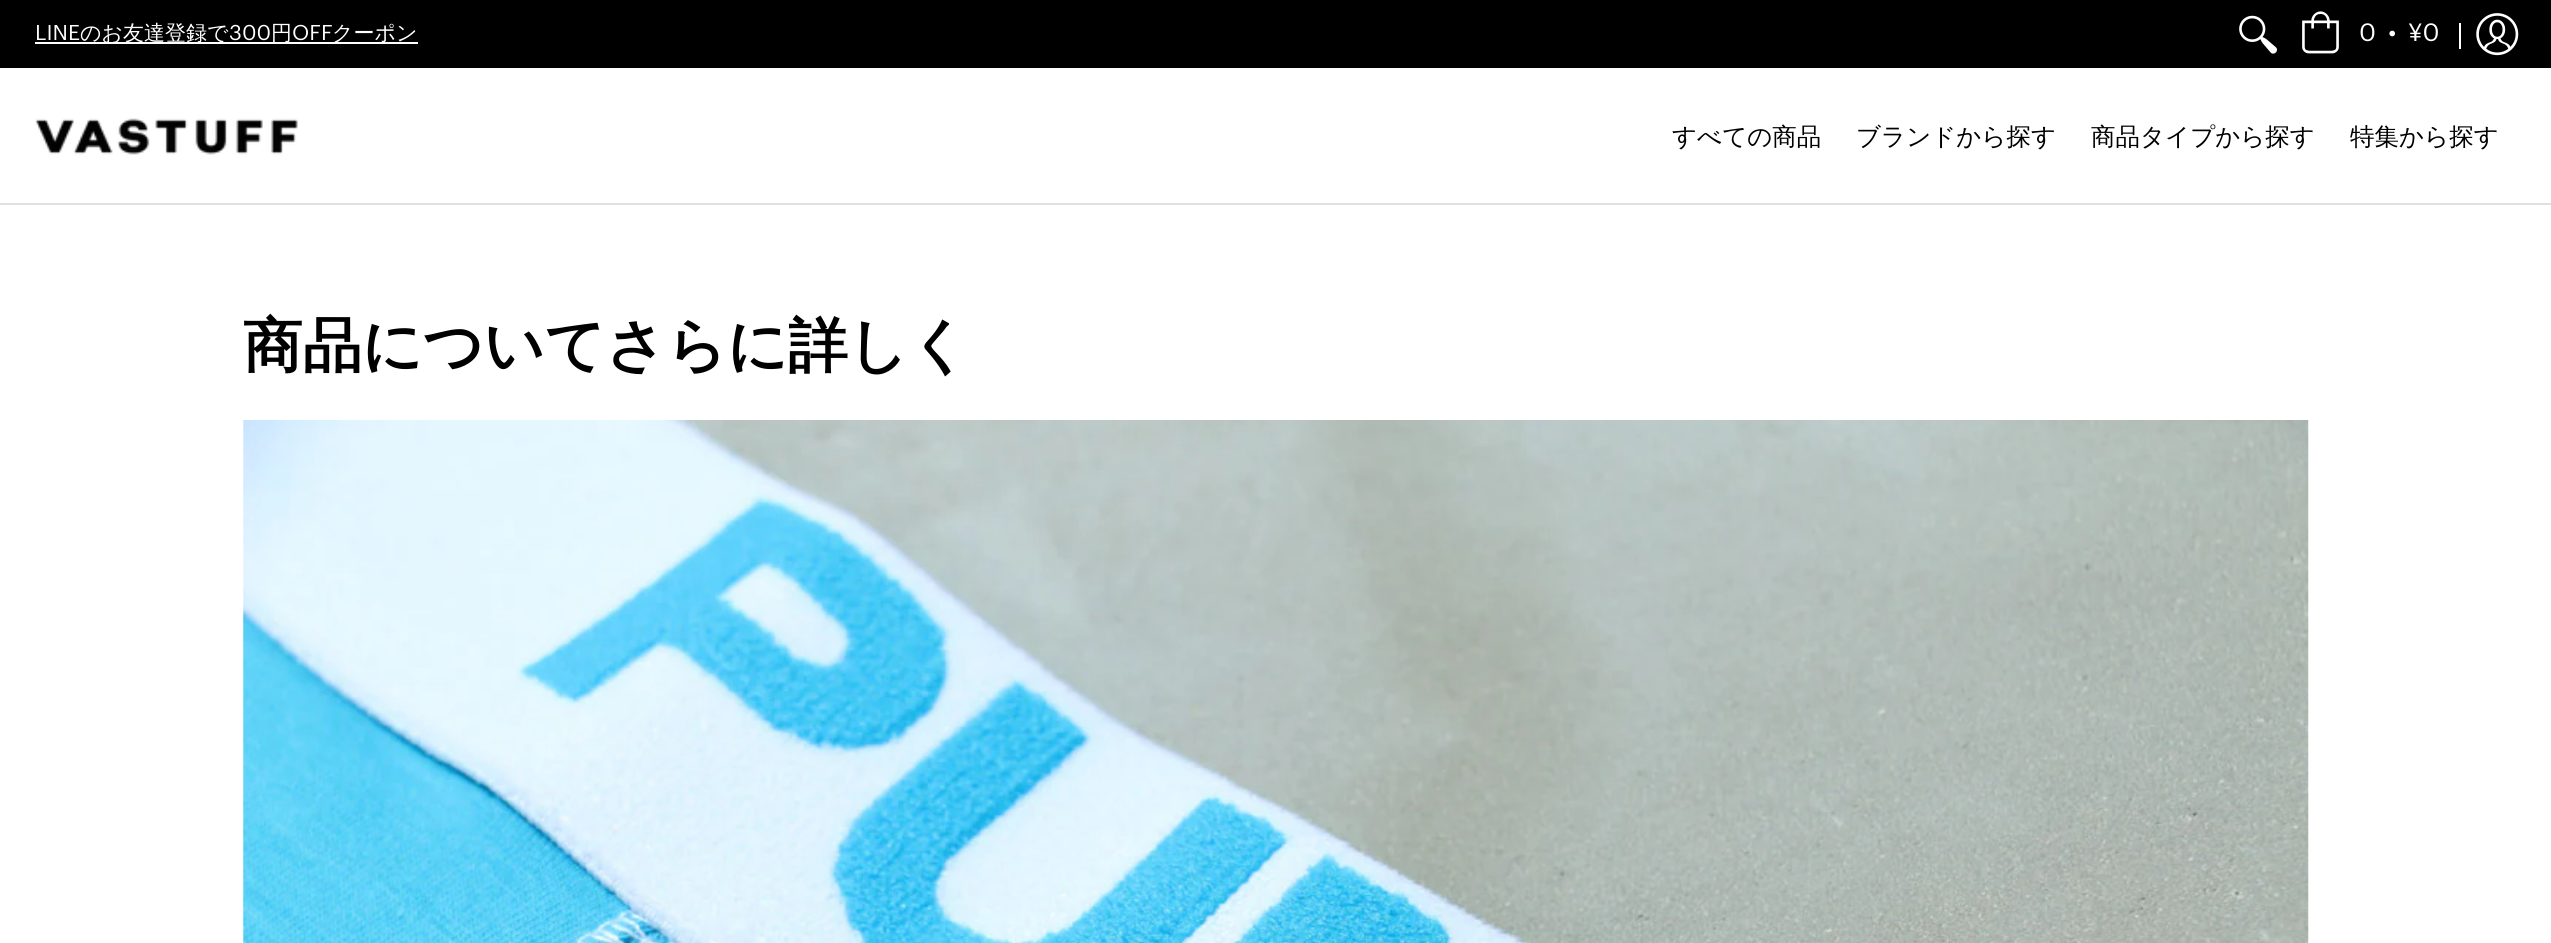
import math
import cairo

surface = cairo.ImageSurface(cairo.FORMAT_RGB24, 2551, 943)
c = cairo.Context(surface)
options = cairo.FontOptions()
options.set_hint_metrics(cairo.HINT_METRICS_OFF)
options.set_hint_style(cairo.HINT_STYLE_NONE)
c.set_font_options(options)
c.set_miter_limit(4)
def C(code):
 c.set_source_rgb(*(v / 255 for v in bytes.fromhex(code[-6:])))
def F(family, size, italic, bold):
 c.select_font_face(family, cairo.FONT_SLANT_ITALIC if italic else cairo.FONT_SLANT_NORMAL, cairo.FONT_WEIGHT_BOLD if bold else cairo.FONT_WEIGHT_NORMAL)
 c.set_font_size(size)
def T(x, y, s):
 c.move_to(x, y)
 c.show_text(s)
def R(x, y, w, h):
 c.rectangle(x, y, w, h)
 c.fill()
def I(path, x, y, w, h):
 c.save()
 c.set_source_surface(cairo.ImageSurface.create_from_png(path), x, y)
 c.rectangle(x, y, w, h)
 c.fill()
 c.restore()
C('ffffff')
c.paint()
C('000000')
R(0,0,2551,68)
F('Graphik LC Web',21,0,0)
C('ffffff')
T(35,40,'LINE')
R(35,42,383,2)
F('WenQuanYi Zen Hei Medium',21,0,0)
T(80,40,'のお友達登録で')
F('Graphik LC Web',21,0,0)
T(229,40,'300')
F('WenQuanYi Zen Hei Medium',21,0,0)
T(271,40,'円')
F('Graphik LC Web',21,0,0)
T(292,40,'OFF')
F('WenQuanYi Zen Hei Medium',21,0,0)
T(332,40,'クーポン')
I('1.png',2239,15,38,39)
I('2.png',2302,11,37,43)
F('Graphik LC Web',24.5,0,0)
T(2359,41,'0')
T(2388,41,'•')
T(2408,41,'¥0')
R(2459,23,2,26)
I('3.png',2476,13,43,43)
C('e0e0e0')
R(0,203,2551,2)
I('4.png',35,118,263,37)
F('WenQuanYi Zen Hei Medium',24.5,0,0)
C('000000')
T(1672,145,'すべての商品')
T(1856,145,'ブランドから探す')
T(2091,145,'商品タイプから探す')
T(2350,145,'特集から探す')
F('WenQuanYi Zen Hei',59.5,0,1)
T(243,366,'商品についてさらに詳しく')
I('5.png',243,420,2066,523)
surface.write_to_png('o.png')
